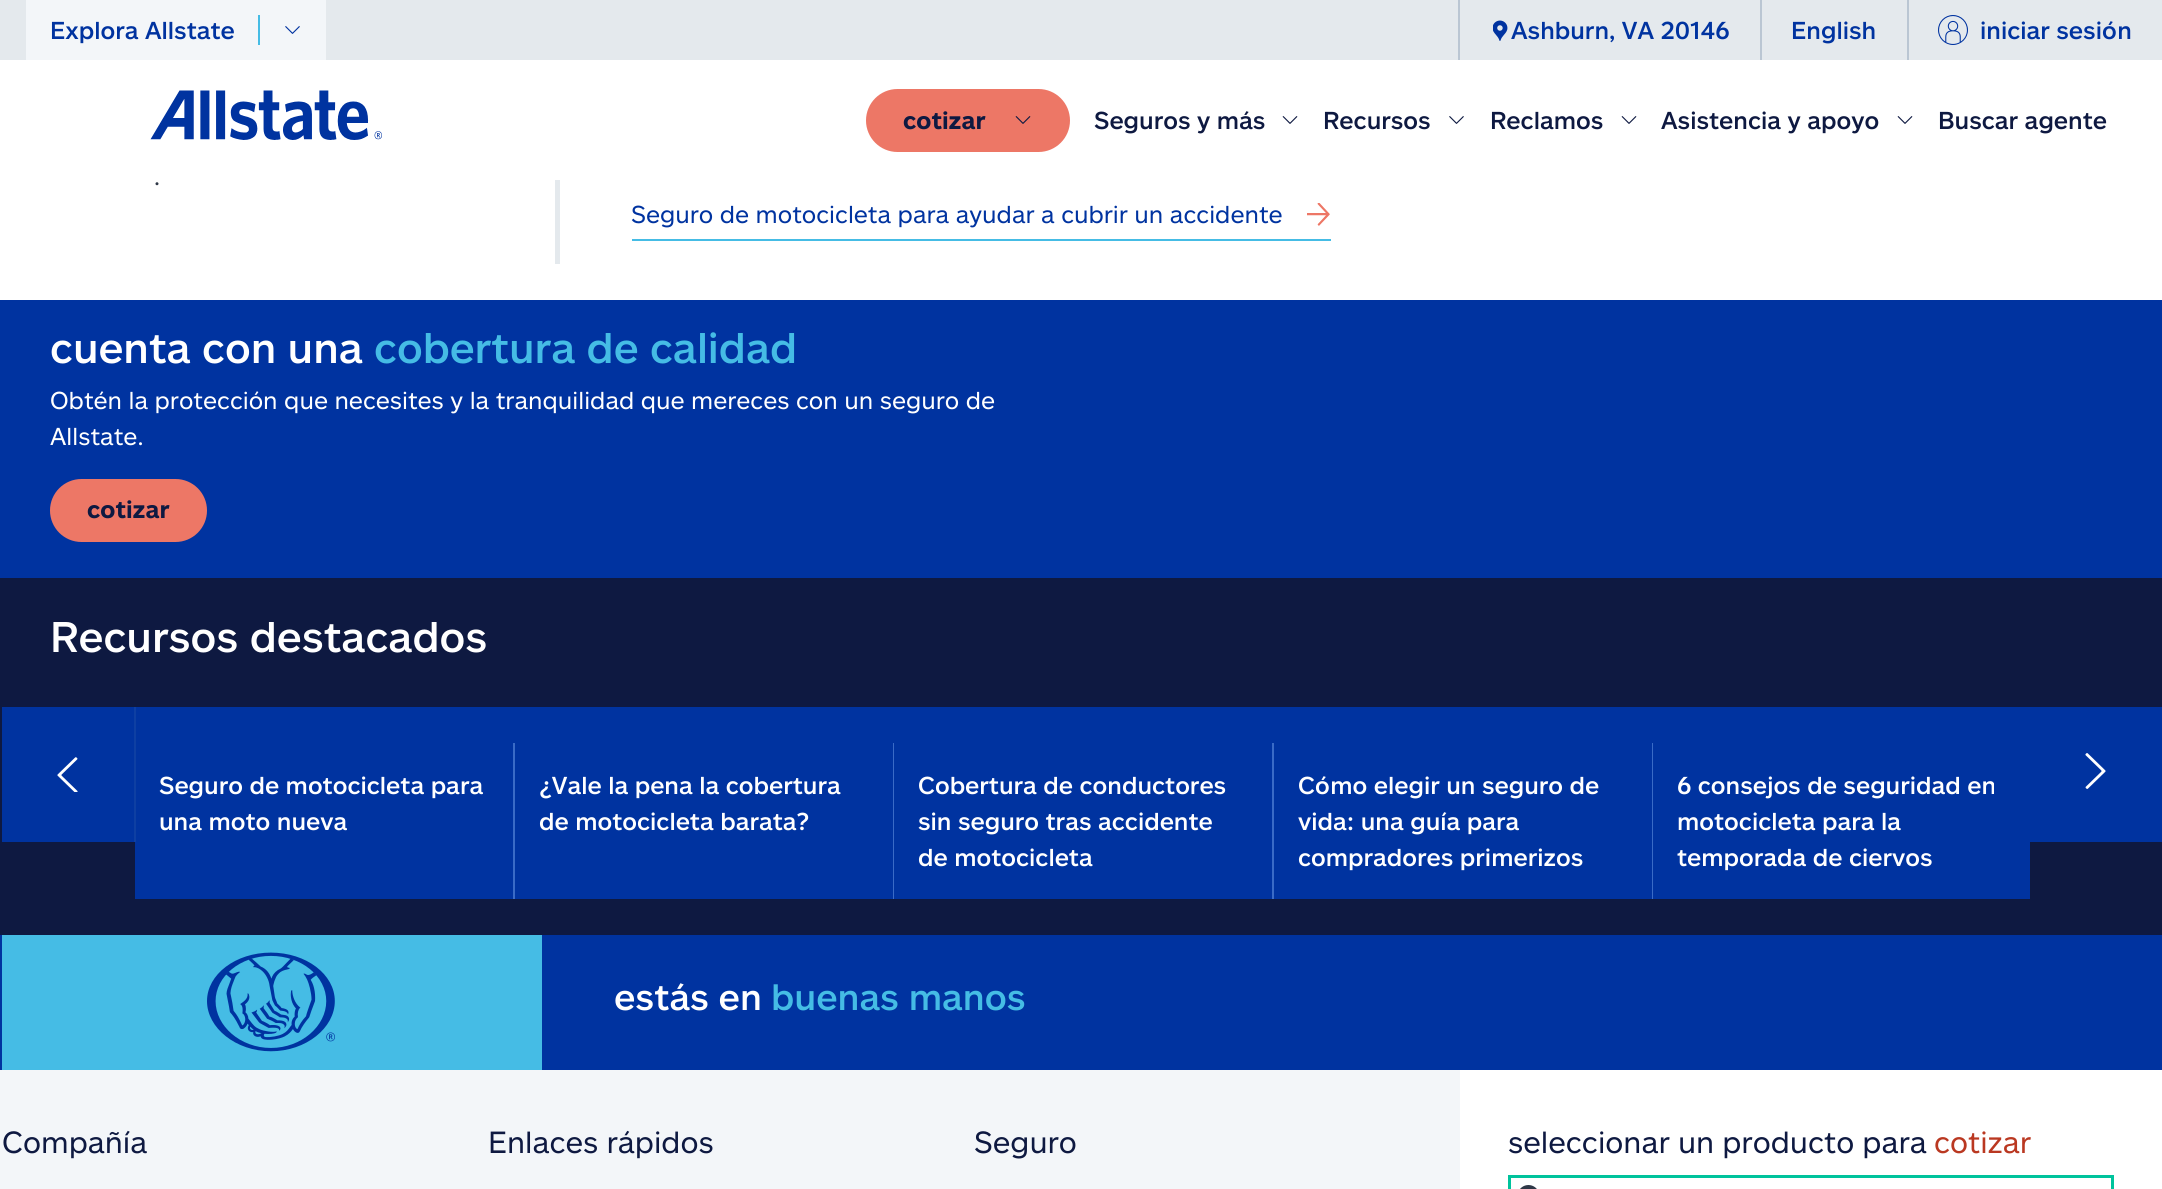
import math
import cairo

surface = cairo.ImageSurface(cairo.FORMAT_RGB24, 2162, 1189)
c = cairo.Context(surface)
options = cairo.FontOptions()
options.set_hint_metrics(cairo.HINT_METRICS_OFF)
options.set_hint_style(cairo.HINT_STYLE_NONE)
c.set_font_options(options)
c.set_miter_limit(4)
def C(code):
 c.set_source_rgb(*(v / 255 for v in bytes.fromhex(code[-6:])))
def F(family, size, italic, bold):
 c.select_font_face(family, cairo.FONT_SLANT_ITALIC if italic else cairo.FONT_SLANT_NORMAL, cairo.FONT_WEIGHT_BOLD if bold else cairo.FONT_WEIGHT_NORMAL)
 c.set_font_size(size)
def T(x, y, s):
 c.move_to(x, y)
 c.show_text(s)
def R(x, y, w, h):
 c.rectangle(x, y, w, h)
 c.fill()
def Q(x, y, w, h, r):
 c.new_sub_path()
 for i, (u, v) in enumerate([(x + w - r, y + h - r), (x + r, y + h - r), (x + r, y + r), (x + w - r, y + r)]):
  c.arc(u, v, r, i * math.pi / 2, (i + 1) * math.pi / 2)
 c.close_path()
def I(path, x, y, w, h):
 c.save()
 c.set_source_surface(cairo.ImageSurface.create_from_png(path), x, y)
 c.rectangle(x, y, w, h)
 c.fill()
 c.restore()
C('ffffff')
c.paint()
C('e4e9ed')
R(0,0,2162,60)
C('f3f6f9')
R(26,0,300,60)
F('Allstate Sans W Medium',24,0,0)
C('0033a0')
T(50,39,'Explora Allstate')
C('45bce5')
R(258,15,2,30)
I('1.png',285,26,15,8)
C('bac6d3')
R(1458,0,2,60)
I('2.png',1493,20,15,21)
C('0033a0')
T(1511,39,'Ashburn, VA 20146')
C('bac6d3')
R(1760,0,2,60)
C('0033a0')
T(1791,39,'English')
C('bac6d3')
R(1907,0,2,60)
I('3.png',1938,15,30,30)
C('0033a0')
T(1980,39,'iniciar sesión')
I('4.png',150,90,232,50)
C('ed7766')
Q(867,90,202,61,30.5)
c.fill_preserve()
c.stroke()
F('Allstate Sans W',24,0,1)
C('0e1941')
T(903,129,'cotizar')
I('5.png',1015,116,16,8)
F('Allstate Sans W Medium',24,0,0)
T(1094,129,'Seguros y más')
I('6.png',1282,116,16,8)
T(1323,129,'Recursos')
I('7.png',1449,116,15,8)
T(1490,129,'Reclamos')
I('6.png',1621,116,16,8)
T(1661,129,'Asistencia y apoyo')
I('6.png',1897,116,16,8)
T(1938,129,'Buscar agente')
F('Allstate Sans W',24,0,0)
C('2f3847')
T(154,185,'.')
C('e4e9ed')
R(555,180,5,84)
C('45bce5')
R(632,239,699,2)
C('0033a0')
T(631,223,'Seguro de motocicleta para ayudar a cubrir un accidente')
I('8.png',1307,203,23,23)
R(0,300,2162,278)
F('Allstate Sans W Medium',42,0,0)
C('ffffff')
T(50,363,'cuenta con una')
C('45bce5')
T(374,363,'cobertura de calidad')
F('Allstate Sans W',24,0,0)
C('ffffff')
T(50,409,'Obtén la protección que necesites y la tranquilidad que mereces con un seguro de')
T(50,445,'Allstate.')
C('ed7766')
Q(51,480,155,61,30.5)
c.fill_preserve()
c.stroke()
F('Allstate Sans W',24,0,1)
C('0e1941')
T(87,518,'cotizar')
R(0,578,2162,357)
F('Allstate Sans W Medium',42,0,0)
C('ffffff')
T(50,652,'Recursos destacados')
C('0033a0')
R(2,707,132,135)
R(135,707,759,192)
C('0e3fa2')
R(134,707,2,135)
I('9.png',57,757,21,35)
C('3a6bc6')
R(513,743,2,156)
F('Allstate Sans W Medium',24,0,0)
C('ffffff')
T(159,794,'Seguro de motocicleta para')
T(159,830,'una moto nueva')
C('3a6bc6')
R(893,743,1,156)
C('ffffff')
T(539,794,'¿Vale la pena la cobertura')
T(539,830,'de motocicleta barata?')
C('0033a0')
R(894,707,380,36)
R(894,743,378,156)
C('3a6bc6')
R(1272,743,2,156)
C('ffffff')
T(918,794,'Cobertura de conductores')
T(918,830,'sin seguro tras accidente')
T(918,866,'de motocicleta')
C('0033a0')
R(1274,707,379,192)
C('3a6bc6')
R(1652,743,1,156)
C('ffffff')
T(1298,794,'Cómo elegir un seguro de')
T(1298,830,'vida: una guía para')
T(1298,866,'compradores primerizos')
C('0033a0')
R(1653,707,377,192)
C('ffffff')
T(1677,794,'6 consejos de seguridad en')
T(1677,830,'motocicleta para la')
T(1677,866,'temporada de ciervos')
C('0033a0')
R(2030,707,132,135)
I('10.png',2085,753,21,36)
R(0,935,2162,135)
C('45bce5')
R(2,935,540,135)
I('11.png',207,952,128,100)
F('Allstate Sans W Medium',36,0,0)
C('ffffff')
T(614,1010,'estás en')
C('45bce5')
T(771,1010,'buenas manos')
C('f3f6f9')
R(0,1070,1460,119)
F('Allstate Sans W',30,0,0)
C('0e1941')
T(2,1153,'Compañía')
T(488,1153,'Enlaces rápidos')
T(974,1153,'Seguro')
T(1508,1153,'seleccionar un producto para')
C('ba3821')
T(1934,1153,'cotizar')
c.rectangle(1509.5,1176.5,603,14)
C('00c39c')
c.set_line_width(3)
c.stroke()
I('12.png',1520,1185,17,4)
surface.write_to_png('o.png')
